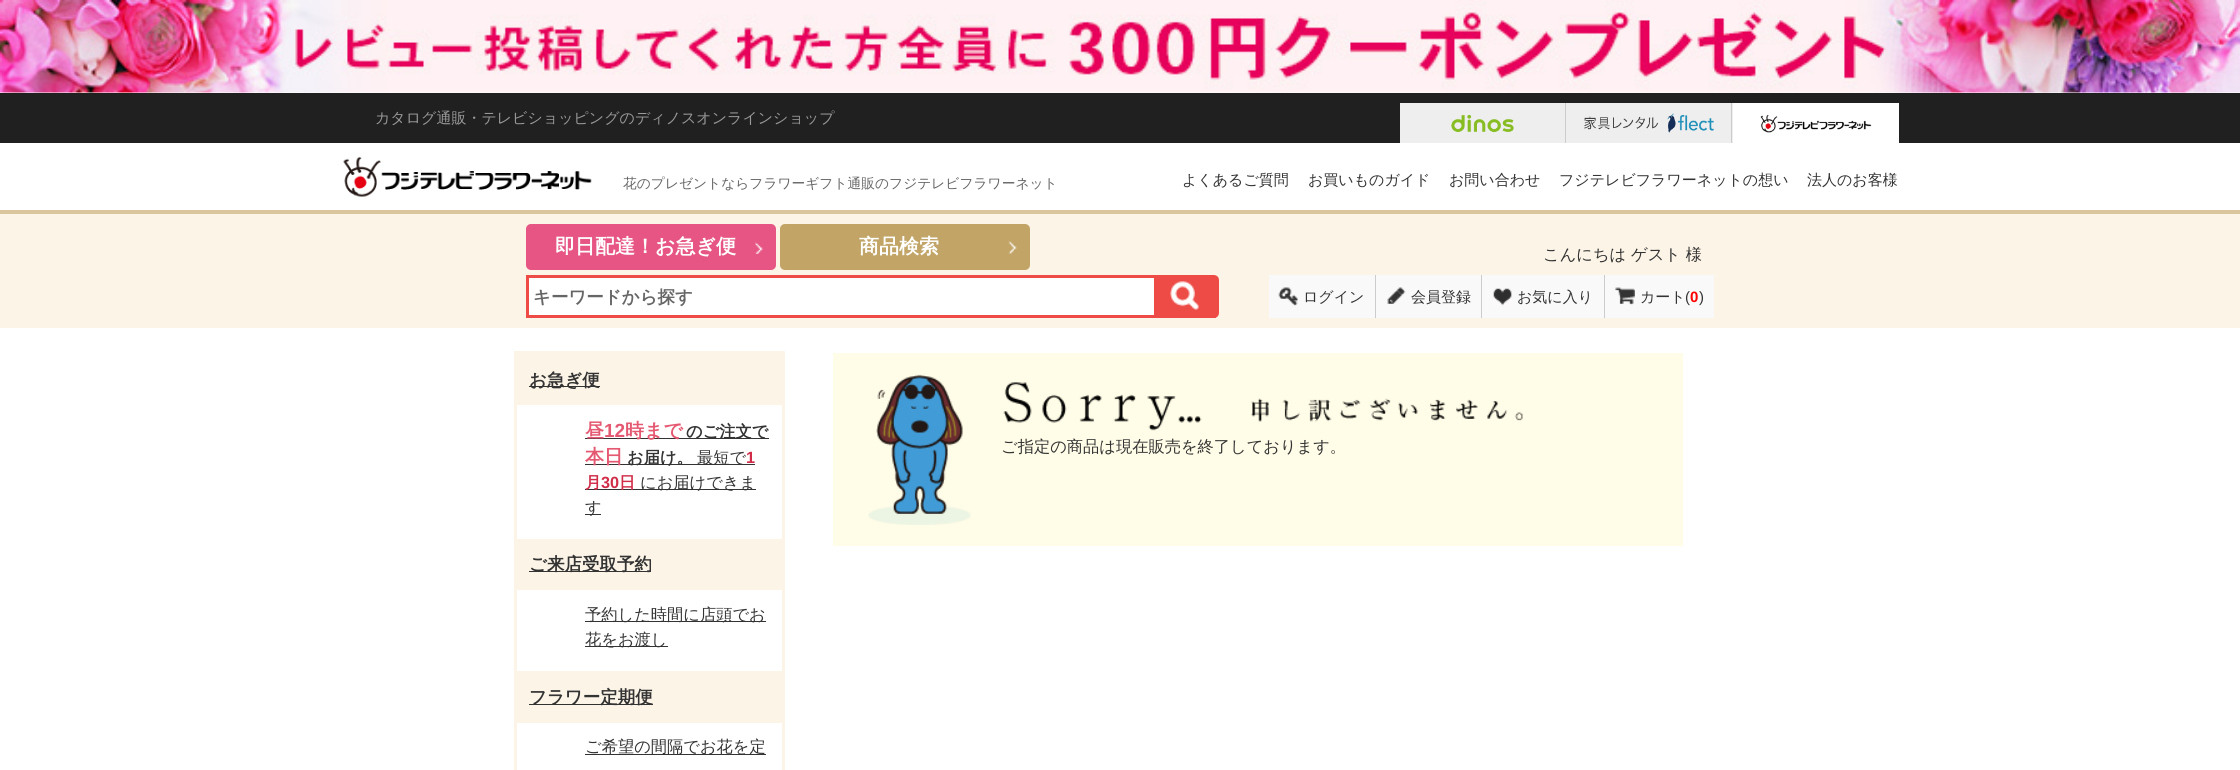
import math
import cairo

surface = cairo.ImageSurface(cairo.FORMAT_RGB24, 2240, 770)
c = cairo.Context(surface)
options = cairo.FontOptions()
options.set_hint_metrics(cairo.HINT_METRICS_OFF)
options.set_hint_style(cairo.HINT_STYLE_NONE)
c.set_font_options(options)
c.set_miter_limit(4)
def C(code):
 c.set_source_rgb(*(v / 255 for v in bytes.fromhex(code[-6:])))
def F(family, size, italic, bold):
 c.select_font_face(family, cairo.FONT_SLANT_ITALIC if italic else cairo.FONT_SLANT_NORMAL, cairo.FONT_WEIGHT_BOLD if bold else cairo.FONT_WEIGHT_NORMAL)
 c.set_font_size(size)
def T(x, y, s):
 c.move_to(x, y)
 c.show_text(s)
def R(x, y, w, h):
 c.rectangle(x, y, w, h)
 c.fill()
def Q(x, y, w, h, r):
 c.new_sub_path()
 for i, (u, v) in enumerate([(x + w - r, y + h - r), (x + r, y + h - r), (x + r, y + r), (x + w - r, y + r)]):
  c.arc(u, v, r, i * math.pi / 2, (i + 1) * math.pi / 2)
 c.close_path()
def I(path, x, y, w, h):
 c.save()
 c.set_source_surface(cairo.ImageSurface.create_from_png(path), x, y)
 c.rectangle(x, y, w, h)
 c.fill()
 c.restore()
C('ffffff')
c.paint()
I('1.png',0,0,2240,93)
C('202020')
R(0,93,2240,50)
F('WenQuanYi Zen Hei Medium',15,0,0)
C('999999')
T(375,123,'カタログ通販・テレビショッピングのディノスオンラインショップ')
C('ffffff')
R(1733,103,166,40)
C('eeeeee')
R(1400,103,165,40)
C('cccccc')
R(1565,103,1,41)
I('2.png',1451,114,63,19)
C('eeeeee')
R(1566,103,167,40)
C('cccccc')
R(1731,103,1,41)
I('3.png',1584,113,130,20)
I('4.png',1760,114,112,19)
C('ffffff')
R(1565,143,167,1)
I('5.png',343,156,249,41)
F('WenQuanYi Zen Hei Medium',13.75,0,0)
C('666666')
T(623,188,'花のプレゼントならフラワーギフト通販のフジテレビフラワーネット')
F('WenQuanYi Zen Hei Medium',15,0,0)
C('333333')
T(1182,185,'よくあるご質問')
T(1308,185,'お買いものガイド')
T(1449,185,'お問い合わせ')
T(1559,185,'フジテレビフラワーネットの想い')
T(1807,185,'法人のお客様')
C('fcf4e7')
R(0,214,2240,114)
C('d9c69f')
R(0,210,2240,4)
C('e65583')
Q(526,224,250,46,5)
c.fill()
I('6.png',755,242,8,12)
F('WenQuanYi Zen Hei',20,0,1)
C('ffffff')
T(555,253,'即日配達！お急ぎ便')
C('c1a466')
Q(780,224,250,46,5)
c.fill()
I('7.png',1008,241,9,13)
C('ffffff')
T(859,253,'商品検索')
F('WenQuanYi Zen Hei Medium',16.25,0,0)
C('333333')
T(1543,260,'こんにちは')
T(1631,260,'ゲスト 様')
C('ffffff')
c.new_path()
c.move_to(527.5,276.5)
c.line_to(1214,276.5)
c.curve_to(1216,276.5,1217.5,278,1217.5,280)
c.line_to(1217.5,313)
c.curve_to(1217.5,315,1216,316.5,1214,316.5)
c.line_to(527.5,316.5)
c.close_path()
c.fill_preserve()
C('ee4b46')
c.set_line_width(3)
c.stroke()
F('WenQuanYi Zen Hei',17.5,0,1)
C('666666')
T(533,303,'キーワードから探す')
C('ee4b46')
R(1154,278,62,40)
I('8.png',1170,281,29,30)
C('f9f9f9')
R(1269,275,106,43)
C('cccccc')
R(1375,275,1,43)
I('9.png',1278,287,20,19)
F('WenQuanYi Zen Hei Medium',15,0,0)
C('333333')
T(1303,302,'ログイン')
C('f9f9f9')
R(1376,275,228,43)
C('cccccc')
R(1481,275,1,43)
I('10.png',1387,287,19,17)
C('333333')
T(1411,302,'会員登録')
C('cccccc')
R(1604,275,1,43)
I('11.png',1493,288,19,18)
C('333333')
T(1517,302,'お気に入り')
C('f9f9f9')
R(1605,275,109,43)
I('12.png',1615,287,20,18)
C('333333')
T(1640,302,'カート')
F('Liberation Sans',15,0,0)
T(1685,302,'(')
F('Liberation Sans',15,0,1)
C('ff0000')
T(1690,302,'0')
F('Liberation Sans',15,0,0)
C('333333')
T(1699,302,')')
c.rectangle(515.5,352.5,268,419)
C('fcf4e7')
c.stroke()
R(517,354,265,51)
C('333333')
R(529,386,71,1)
F('WenQuanYi Zen Hei',17.5,0,1)
T(529,386,'お急ぎ便')
R(585,438,96,1)
F('WenQuanYi Zen Hei',19,0,1)
C('e55871')
T(585,437,'昼')
F('Liberation Sans',19,0,1)
T(604,437,'12')
F('WenQuanYi Zen Hei',19,0,1)
T(625,437,'時まで')
C('333333')
R(681,438,88,1)
F('WenQuanYi Zen Hei',16.25,0,1)
T(686,437,'のご注文で')
R(585,464,161,1)
F('WenQuanYi Zen Hei',19,0,1)
C('e55871')
T(585,463,'本日')
F('WenQuanYi Zen Hei',16.25,0,1)
C('333333')
T(627,463,'お届け。')
F('WenQuanYi Zen Hei Medium',16.25,0,0)
T(697,463,'最短で')
R(746,464,9,1)
F('Liberation Sans',16.25,0,1)
C('d12d49')
T(746,463,'1')
C('333333')
R(585,489,171,1)
F('WenQuanYi Zen Hei',16.25,0,1)
C('d12d49')
T(585,488,'月')
F('Liberation Sans',16.25,0,1)
T(601,488,'30')
F('WenQuanYi Zen Hei',16.25,0,1)
T(619,488,'日')
F('WenQuanYi Zen Hei Medium',16.25,0,0)
C('333333')
T(640,488,'にお届けできま')
R(585,514,16,1)
T(585,513,'す')
C('fcf4e7')
R(517,539,265,51)
C('333333')
R(529,571,122,1)
F('WenQuanYi Zen Hei',17.5,0,1)
T(529,570,'ご来店受取予約')
R(585,621,181,1)
F('WenQuanYi Zen Hei Medium',16.25,0,0)
T(585,620,'予約した時間に店頭でお')
R(585,646,83,1)
T(585,645,'花をお渡し')
C('fcf4e7')
R(517,671,265,52)
C('333333')
R(529,704,124,1)
F('WenQuanYi Zen Hei',17.5,0,1)
T(529,703,'フラワー定期便')
R(585,754,181,1)
F('WenQuanYi Zen Hei Medium',16.25,0,0)
T(585,752,'ご希望の間隔でお花を定')
C('fffce7')
R(833,353,850,193)
I('13.png',868,374,103,151)
I('14.png',1003,382,520,49)
C('333333')
T(1001,452,'ご指定の商品は現在販売を終了しております。')
surface.write_to_png('o.png')
